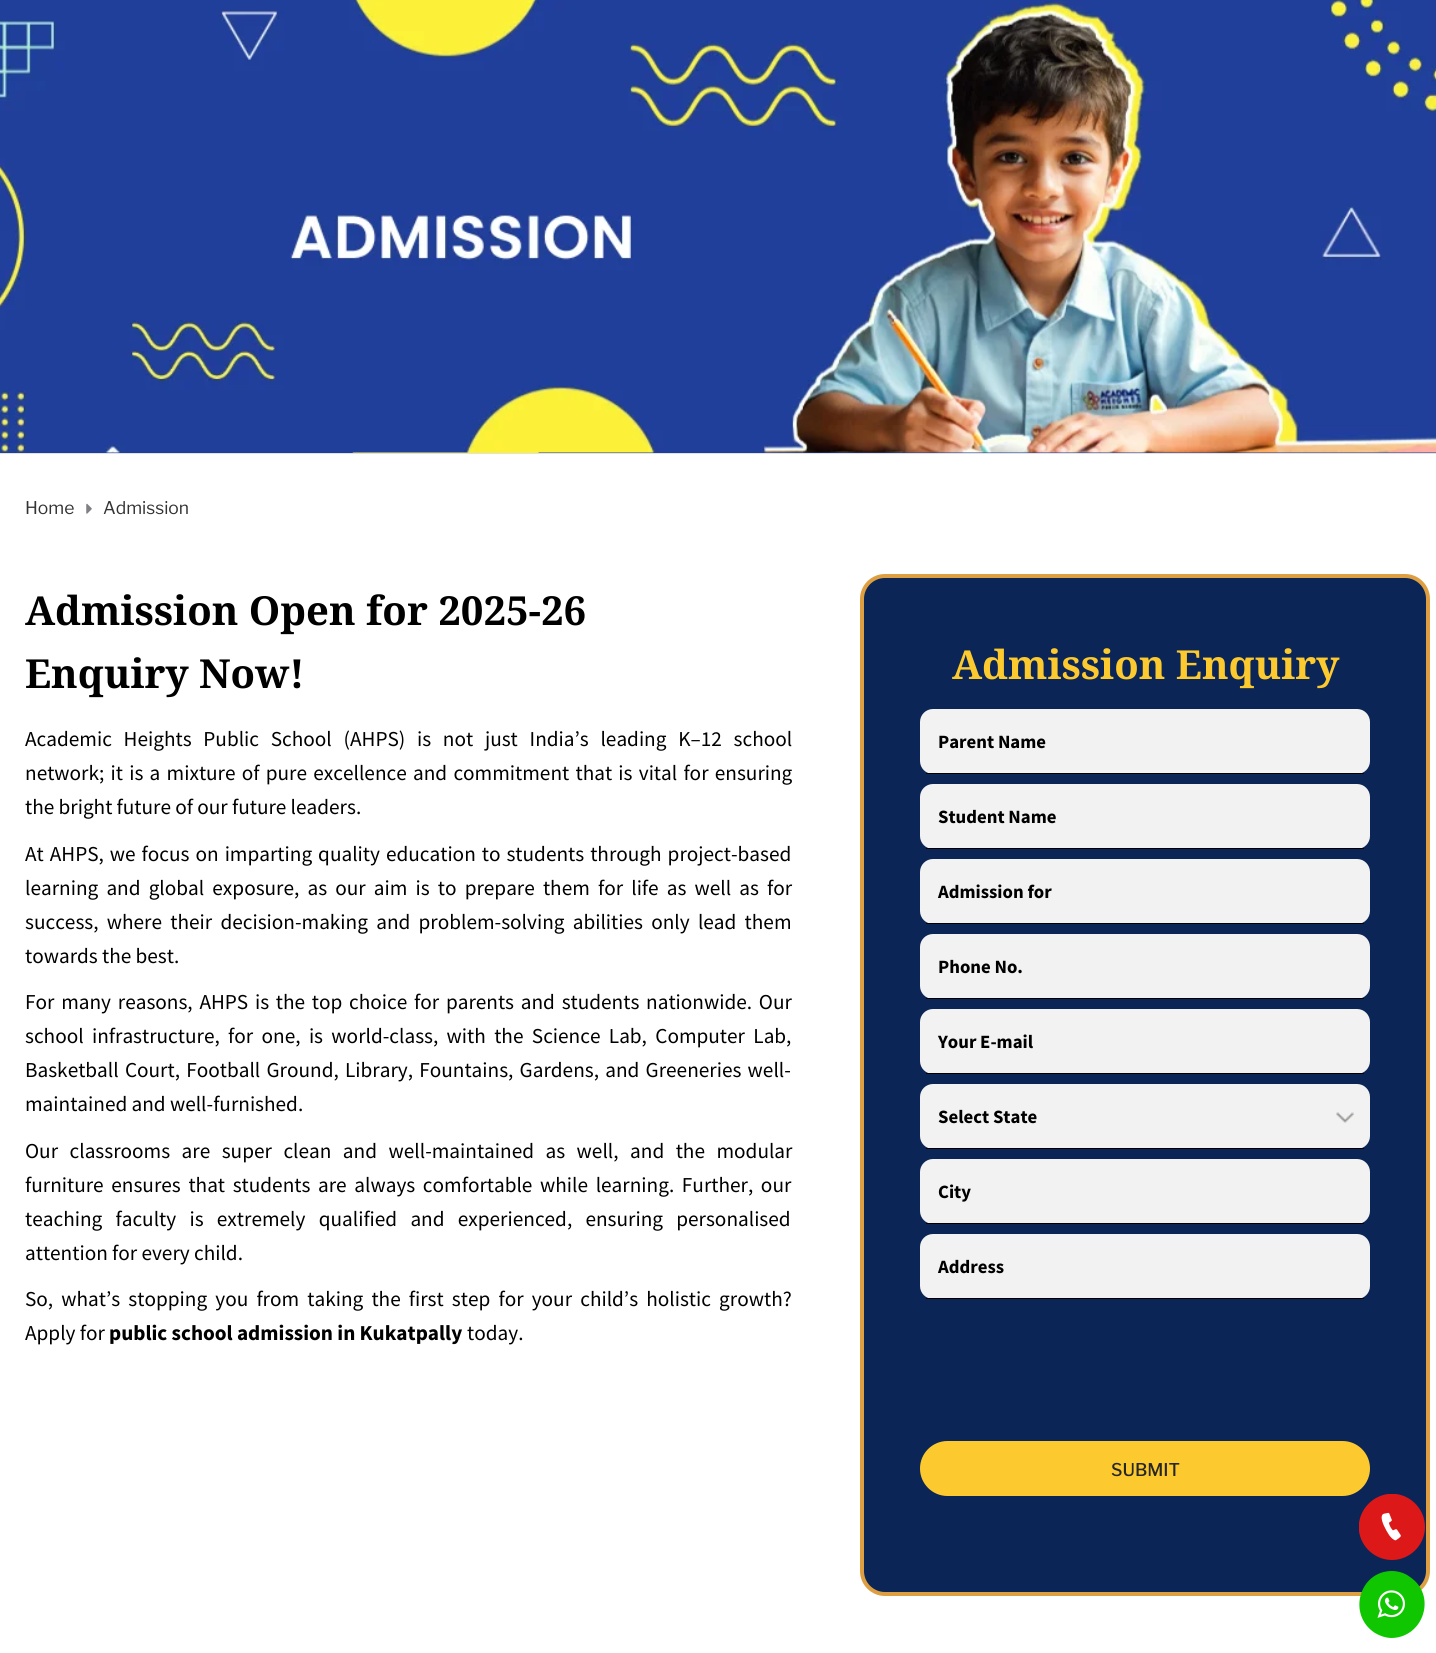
import math
import cairo

surface = cairo.ImageSurface(cairo.FORMAT_RGB24, 1436, 1653)
c = cairo.Context(surface)
options = cairo.FontOptions()
options.set_hint_metrics(cairo.HINT_METRICS_OFF)
options.set_hint_style(cairo.HINT_STYLE_NONE)
c.set_font_options(options)
c.set_miter_limit(4)
def C(code):
 c.set_source_rgb(*(v / 255 for v in bytes.fromhex(code[-6:])))
def F(family, size, italic, bold):
 c.select_font_face(family, cairo.FONT_SLANT_ITALIC if italic else cairo.FONT_SLANT_NORMAL, cairo.FONT_WEIGHT_BOLD if bold else cairo.FONT_WEIGHT_NORMAL)
 c.set_font_size(size)
def T(x, y, s):
 c.move_to(x, y)
 c.show_text(s)
def L(x, y, s, letter, word):
 c.move_to(x, y)
 for ch in s:
  c.show_text(ch)
  c.rel_move_to(letter + word * (ch == ' '), 0)
def R(x, y, w, h):
 c.rectangle(x, y, w, h)
 c.fill()
def Q(x, y, w, h, r):
 c.new_sub_path()
 for i, (u, v) in enumerate([(x + w - r, y + h - r), (x + r, y + h - r), (x + r, y + r), (x + w - r, y + r)]):
  c.arc(u, v, r, i * math.pi / 2, (i + 1) * math.pi / 2)
 c.close_path()
def I(path, x, y, w, h):
 c.save()
 c.set_source_surface(cairo.ImageSurface.create_from_png(path), x, y)
 c.rectangle(x, y, w, h)
 c.fill()
 c.restore()
C('ffffff')
c.paint()
I('1.png',0,0,1436,453)
C('e1e1e1')
R(0,453,1436,1)
F('Libre Franklin',17.5,0,0)
C('333333')
T(25,514,'Home')
I('2.png',86,503,6,11)
T(103,514,'Admission')
F('Noto Serif',40,0,1)
C('000000')
T(25,625,'Admission Open for 2025-26')
T(25,688,'Enquiry Now!')
F('Source Sans Pro',21.25,0,0)
L(25,746,'Academic Heights Public School (AHPS) is not just India’s leading K–12 school',0,7.5)
L(25,780,'network; it is a mixture of pure excellence and commitment that is vital for ensuring',0,2)
T(25,814,'the bright future of our future leaders.')
L(25,861,'At AHPS, we focus on imparting quality education to students through project-based',0,1.75)
L(25,895,'learning and global exposure, as our aim is to prepare them for life as well as for',0,3.9)
L(25,929,'success, where their decision-making and problem-solving abilities only lead them',0,4)
T(25,963,'towards the best.')
L(25,1009,'For many reasons, AHPS is the top choice for parents and students nationwide. Our',0,2.5)
L(25,1043,'school infrastructure, for one, is world-class, with the Science Lab, Computer Lab,',0,4.1)
L(25,1077,'Basketball Court, Football Ground, Library, Fountains, Gardens, and Greeneries well-',0,2)
T(25,1111,'maintained and well-furnished.')
L(25,1158,'Our classrooms are super clean and well-maintained as well, and the modular',0,7.25)
L(25,1192,'furniture ensures that students are always comfortable while learning. Further, our',0,3.4)
L(25,1226,'teaching faculty is extremely qualified and experienced, ensuring personalised',0,9)
T(25,1260,'attention for every child.')
L(25,1306,'So, what’s stopping you from taking the first step for your child’s holistic growth?',0,3.9)
T(25,1340,'Apply for')
F('Source Sans Pro',21.25,0,1)
T(109,1340,'public school admission in Kukatpally')
F('Source Sans Pro',21.25,0,0)
T(467,1340,'today.')
C('0a2556')
Q(862,576,566,1018,23)
c.fill_preserve()
C('dd9f42')
c.set_line_width(4)
c.stroke()
F('Noto Serif',40,0,1)
C('fcc92f')
T(952,679,'Admission Enquiry')
C('f2f2f2')
Q(920,709,450,65,13)
c.fill()
C('000000')
R(926,773,438,1)
F('Source Sans Pro',18.75,0,1)
T(938,748,'Parent Name')
C('f2f2f2')
Q(920,784,450,65,13)
c.fill()
C('000000')
R(926,848,438,1)
T(938,823,'Student Name')
C('f2f2f2')
Q(920,859,450,65,13)
c.fill()
C('000000')
R(926,923,438,1)
T(938,898,'Admission for')
C('f2f2f2')
Q(920,934,450,65,13)
c.fill()
C('000000')
R(926,998,438,1)
T(938,973,'Phone No.')
C('f2f2f2')
Q(920,1009,450,65,13)
c.fill()
C('000000')
R(926,1073,438,1)
T(938,1048,'Your E-mail')
C('f2f2f2')
Q(920,1084,450,65,13)
c.fill()
I('3.png',1336,1112,18,11)
C('000000')
R(926,1148,438,1)
T(938,1123,'Select State')
C('f2f2f2')
Q(920,1159,450,65,13)
c.fill()
C('000000')
R(926,1223,438,1)
T(938,1198,'City')
C('f2f2f2')
Q(920,1234,450,65,13)
c.fill()
C('000000')
R(926,1298,438,1)
T(938,1273,'Address')
C('fcc92f')
Q(920,1441,450,55,27.5)
c.fill()
F('Libre Franklin Medium',17.5,0,0)
C('262626')
T(1111,1476,'SUBMIT')
C('dd1818')
c.new_path()
c.move_to(1359,1523)
c.curve_to(1361,1508,1373,1496,1388,1494)
c.line_to(1396,1494)
c.curve_to(1412,1496,1425,1510,1425,1527)
c.curve_to(1425,1545,1410,1560,1392,1560)
c.curve_to(1375,1560,1361,1547,1359,1531)
c.close_path()
c.fill()
I('4.png',1381,1512,20,29)
C('10c600')
c.new_path()
c.move_to(1392,1571)
c.curve_to(1398,1571,1405,1573,1410,1577)
c.curve_to(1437,1595,1424,1637,1392,1638)
c.curve_to(1386,1638,1380,1636,1375,1633)
c.curve_to(1347,1615,1359,1571,1392,1571)
c.close_path()
c.fill()
I('5.png',1377,1590,28,28)
surface.write_to_png('o.png')
